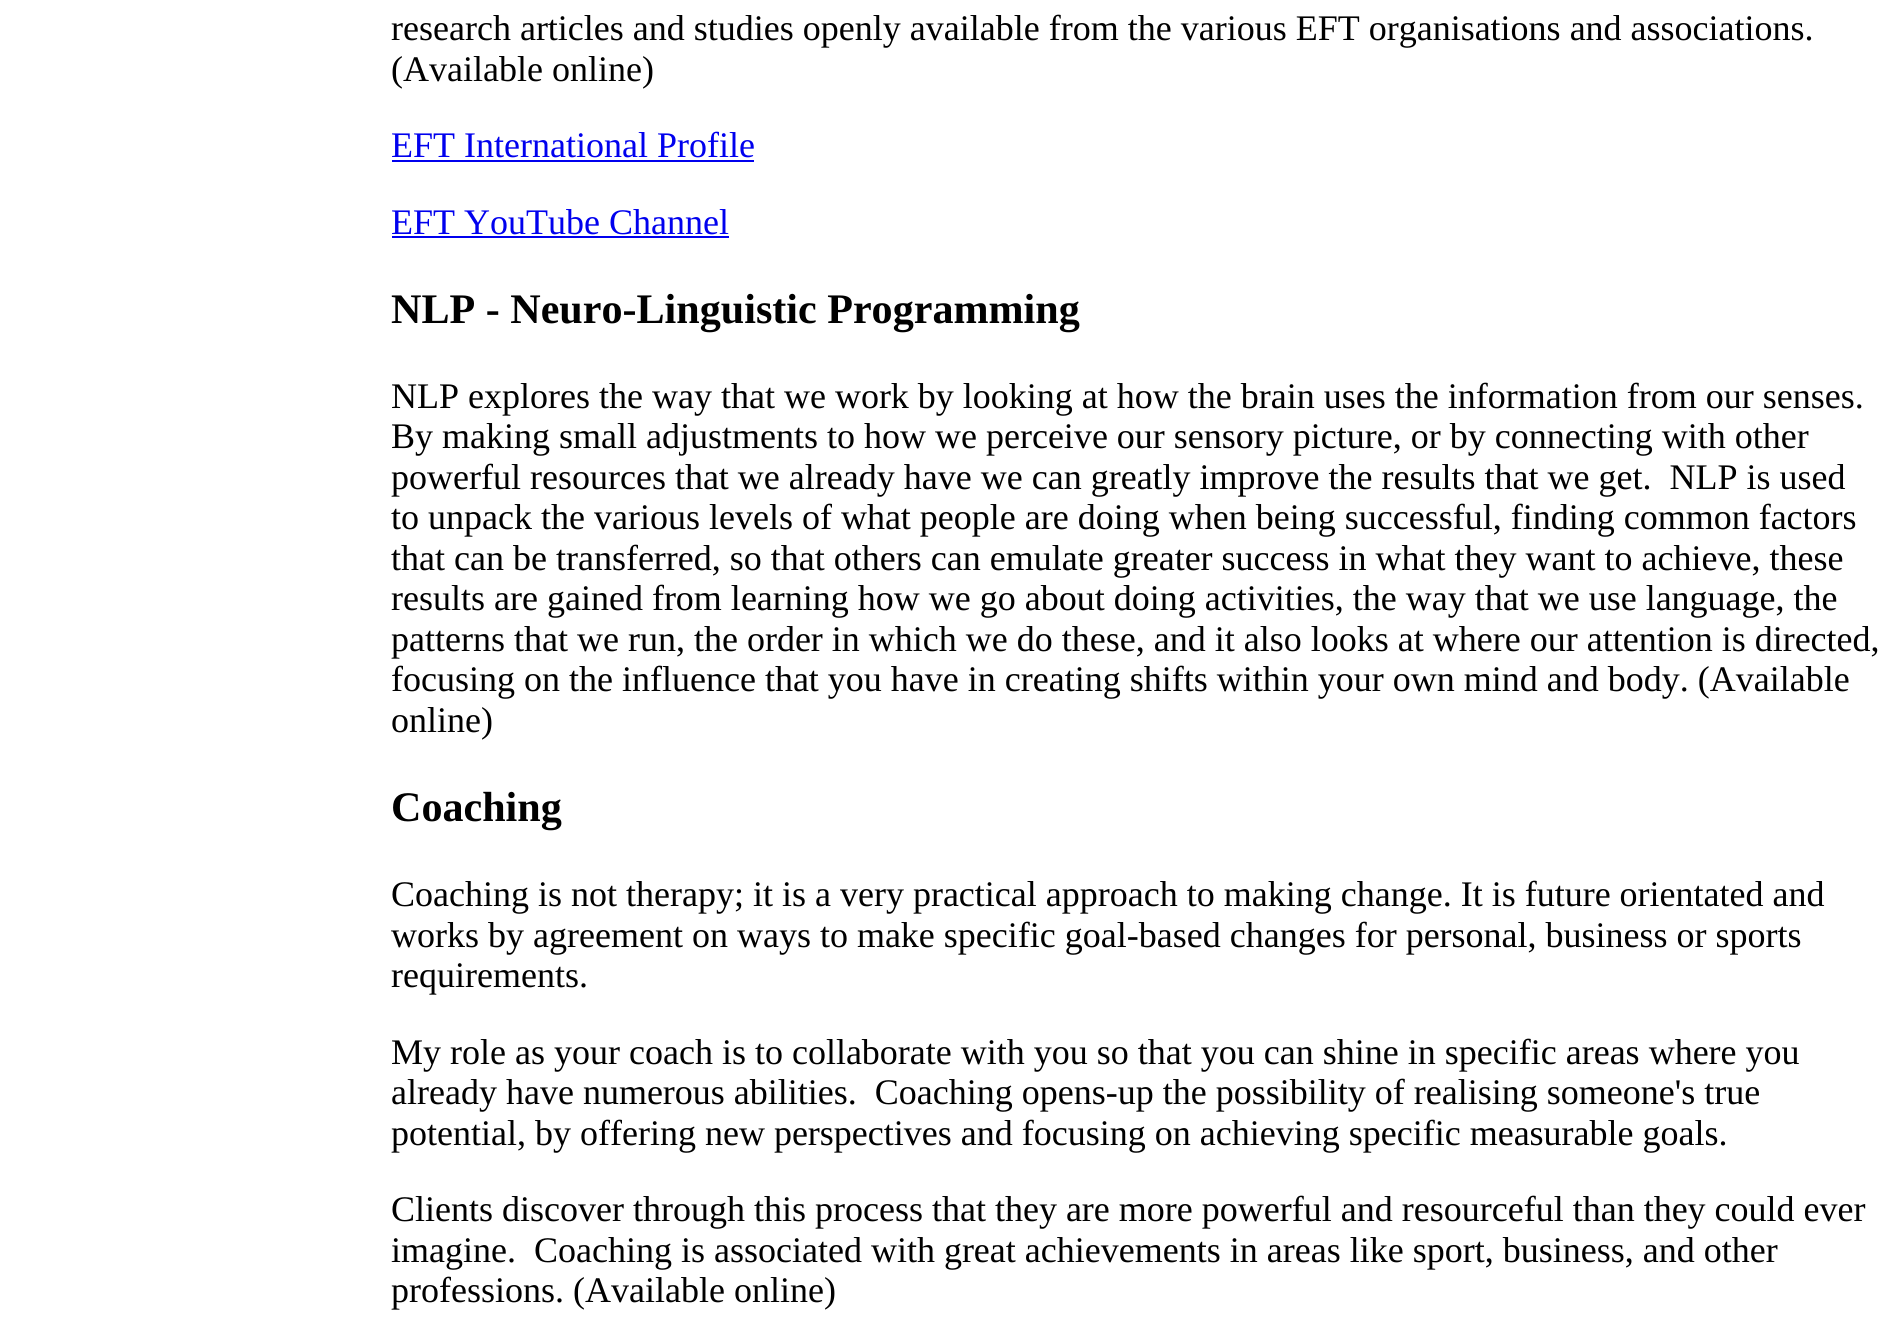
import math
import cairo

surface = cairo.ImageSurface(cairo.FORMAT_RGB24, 1897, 1339)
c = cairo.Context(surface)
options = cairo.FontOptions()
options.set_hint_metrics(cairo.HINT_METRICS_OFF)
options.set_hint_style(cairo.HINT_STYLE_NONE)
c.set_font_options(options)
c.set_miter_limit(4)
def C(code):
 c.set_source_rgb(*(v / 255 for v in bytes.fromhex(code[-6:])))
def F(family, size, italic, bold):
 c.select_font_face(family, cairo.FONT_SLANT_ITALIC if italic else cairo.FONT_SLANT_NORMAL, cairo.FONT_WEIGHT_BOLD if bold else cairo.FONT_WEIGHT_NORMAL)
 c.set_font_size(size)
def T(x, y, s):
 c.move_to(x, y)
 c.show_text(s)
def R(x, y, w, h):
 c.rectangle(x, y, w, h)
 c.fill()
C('ffffff')
c.paint()
F('Liberation Serif',36,0,0)
C('000000')
T(391,40,'research articles and studies openly available from the various EFT organisations and associations.')
T(391,81,'(Available online)')
C('0000ee')
T(391,157,'EFT International Profile')
R(392,160,362,2)
T(391,234,'EFT YouTube Channel')
R(392,236,337,2)
F('Liberation Serif',42.1,0,1)
C('000000')
T(391,323,'NLP - Neuro-Linguistic Programming')
F('Liberation Serif',36,0,0)
T(391,408,'NLP explores the way that we work by looking at how the brain uses the information from our senses.')
T(391,448,'By making small adjustments to how we perceive our sensory picture, or by connecting with other')
T(391,489,'powerful resources that we already have we can greatly improve the results that we get.  NLP is used')
T(391,529,'to unpack the various levels of what people are doing when being successful, finding common factors')
T(391,570,'that can be transferred, so that others can emulate greater success in what they want to achieve, these')
T(391,610,'results are gained from learning how we go about doing activities, the way that we use language, the')
T(391,651,'patterns that we run, the order in which we do these, and it also looks at where our attention is directed,')
T(391,691,'focusing on the influence that you have in creating shifts within your own mind and body. (Available')
T(391,732,'online)')
F('Liberation Serif',42.1,0,1)
T(391,821,'Coaching')
F('Liberation Serif',36,0,0)
T(391,906,'Coaching is not therapy; it is a very practical approach to making change. It is future orientated and')
T(391,947,'works by agreement on ways to make specific goal-based changes for personal, business or sports')
T(391,987,'requirements.')
T(391,1064,'My role as your coach is to collaborate with you so that you can shine in specific areas where you')
T(391,1104,'already have numerous abilities.  Coaching opens-up the possibility of realising someone\'s true')
T(391,1145,'potential, by offering new perspectives and focusing on achieving specific measurable goals.')
T(391,1221,'Clients discover through this process that they are more powerful and resourceful than they could ever')
T(391,1262,'imagine.  Coaching is associated with great achievements in areas like sport, business, and other')
T(391,1302,'professions. (Available online)')
surface.write_to_png('o.png')
